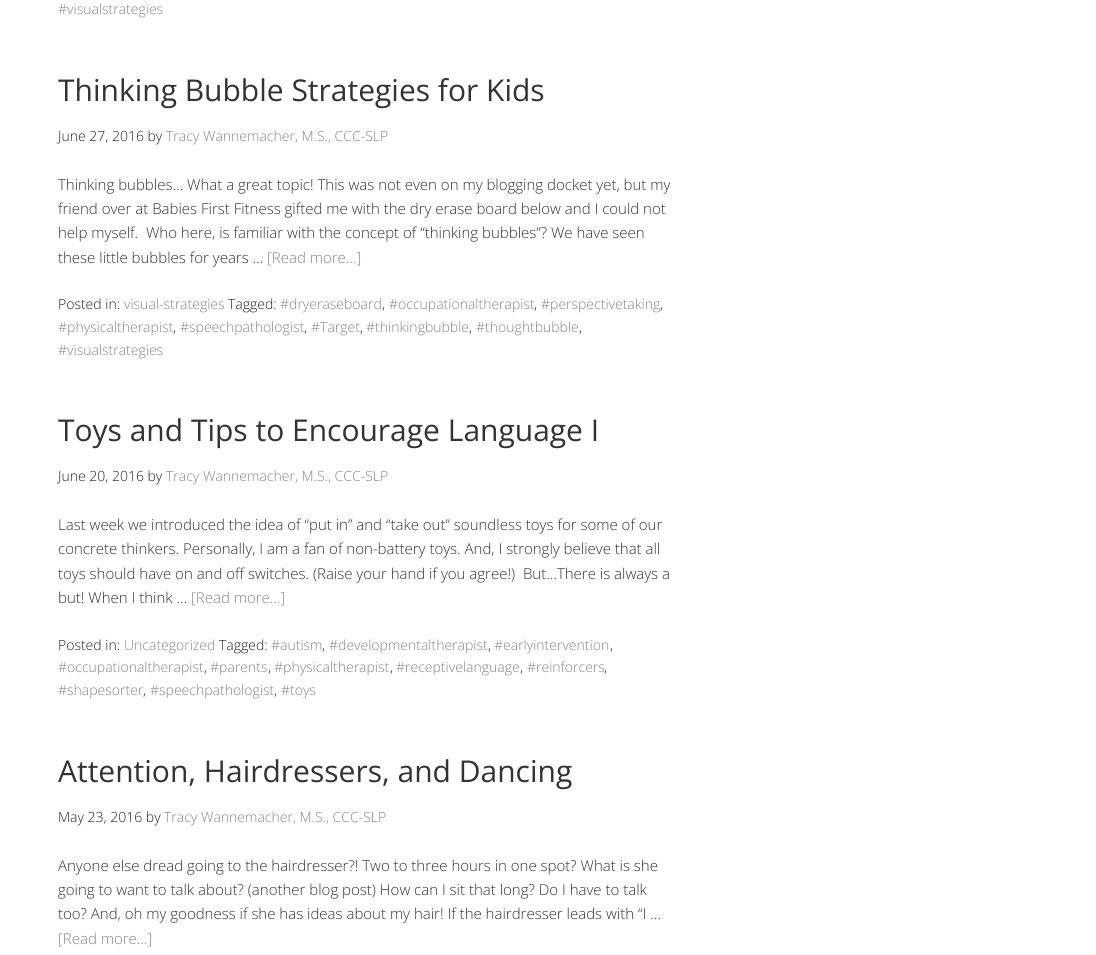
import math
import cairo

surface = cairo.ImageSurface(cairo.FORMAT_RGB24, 1096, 955)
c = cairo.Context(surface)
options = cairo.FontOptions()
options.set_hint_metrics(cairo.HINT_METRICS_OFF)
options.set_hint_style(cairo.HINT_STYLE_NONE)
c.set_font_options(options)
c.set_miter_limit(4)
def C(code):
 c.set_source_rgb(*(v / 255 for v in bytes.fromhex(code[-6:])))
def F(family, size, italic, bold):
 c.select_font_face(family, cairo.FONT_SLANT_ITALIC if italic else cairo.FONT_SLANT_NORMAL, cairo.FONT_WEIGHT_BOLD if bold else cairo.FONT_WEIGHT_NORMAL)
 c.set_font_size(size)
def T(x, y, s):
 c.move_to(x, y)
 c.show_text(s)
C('ffffff')
c.paint()
F('Open Sans Light',14,0,0)
C('858585')
T(58,14,'#visualstrategies')
F('Open Sans',30,0,0)
C('333333')
T(58,101,'Thinking Bubble Strategies for Kids')
F('Open Sans Light',14,0,0)
C('232323')
T(58,141,'June 27, 2016 by')
C('858585')
T(166,141,'Tracy Wannemacher, M.S., CCC-SLP')
F('Open Sans Light',15,0,0)
C('333333')
T(58,190,'Thinking bubbles… What a great topic! This was not even on my blogging docket yet, but my')
T(58,214,'friend over at Babies First Fitness gifted me with the dry erase board below and I could not')
T(58,238,'help myself.  Who here, is familiar with the concept of “thinking bubbles”? We have seen')
T(58,263,'these little bubbles for years …')
C('858585')
T(267,263,'[Read more…]')
F('Open Sans Light',14,0,0)
C('232323')
T(58,309,'Posted in:')
C('858585')
T(124,309,'visual-strategies')
C('232323')
T(228,309,'Tagged:')
C('858585')
T(280,309,'#dryeraseboard')
C('232323')
T(382,309,',')
C('858585')
T(389,309,'#occupationaltherapist')
C('232323')
T(534,309,',')
C('858585')
T(541,309,'#perspectivetaking')
C('232323')
T(660,309,',')
C('858585')
T(58,332,'#physicaltherapist')
C('232323')
T(173,332,',')
C('858585')
T(180,332,'#speechpathologist')
C('232323')
T(304,332,',')
C('858585')
T(311,332,'#Target')
C('232323')
T(360,332,',')
C('858585')
T(366,332,'#thinkingbubble')
C('232323')
T(469,332,',')
C('858585')
T(476,332,'#thoughtbubble')
C('232323')
T(579,332,',')
C('858585')
T(58,355,'#visualstrategies')
F('Open Sans',30,0,0)
C('333333')
T(58,441,'Toys and Tips to Encourage Language I')
F('Open Sans Light',14,0,0)
C('232323')
T(58,481,'June 20, 2016 by')
C('858585')
T(166,481,'Tracy Wannemacher, M.S., CCC-SLP')
F('Open Sans Light',15,0,0)
C('333333')
T(58,530,'Last week we introduced the idea of “put in” and “take out” soundless toys for some of our')
T(58,554,'concrete thinkers. Personally, I am a fan of non-battery toys. And, I strongly believe that all')
T(58,579,'toys should have on and off switches. (Raise your hand if you agree!)  But…There is always a')
T(58,603,'but! When I think …')
C('858585')
T(191,603,'[Read more…]')
F('Open Sans Light',14,0,0)
C('232323')
T(58,650,'Posted in:')
C('858585')
T(124,650,'Uncategorized')
C('232323')
T(219,650,'Tagged:')
C('858585')
T(271,650,'#autism')
C('232323')
T(322,650,',')
C('858585')
T(329,650,'#developmentaltherapist')
C('232323')
T(488,650,',')
C('858585')
T(494,650,'#earlyintervention')
C('232323')
T(610,650,',')
C('858585')
T(58,672,'#occupationaltherapist')
C('232323')
T(204,672,',')
C('858585')
T(210,672,'#parents')
C('232323')
T(268,672,',')
C('858585')
T(274,672,'#physicaltherapist')
C('232323')
T(390,672,',')
C('858585')
T(396,672,'#receptivelanguage')
C('232323')
T(520,672,',')
C('858585')
T(527,672,'#reinforcers')
C('232323')
T(604,672,',')
C('858585')
T(58,695,'#shapesorter')
C('232323')
T(143,695,',')
C('858585')
T(150,695,'#speechpathologist')
C('232323')
T(274,695,',')
C('858585')
T(281,695,'#toys')
F('Open Sans',30,0,0)
C('333333')
T(58,782,'Attention, Hairdressers, and Dancing')
F('Open Sans Light',14,0,0)
C('232323')
T(58,822,'May 23, 2016 by')
C('858585')
T(164,822,'Tracy Wannemacher, M.S., CCC-SLP')
F('Open Sans Light',15,0,0)
C('333333')
T(58,871,'Anyone else dread going to the hairdresser?! Two to three hours in one spot? What is she')
T(58,895,'going to want to talk about? (another blog post) How can I sit that long? Do I have to talk')
T(58,919,'too? And, oh my goodness if she has ideas about my hair! If the hairdresser leads with “I …')
C('858585')
T(58,944,'[Read more…]')
surface.write_to_png('o.png')
